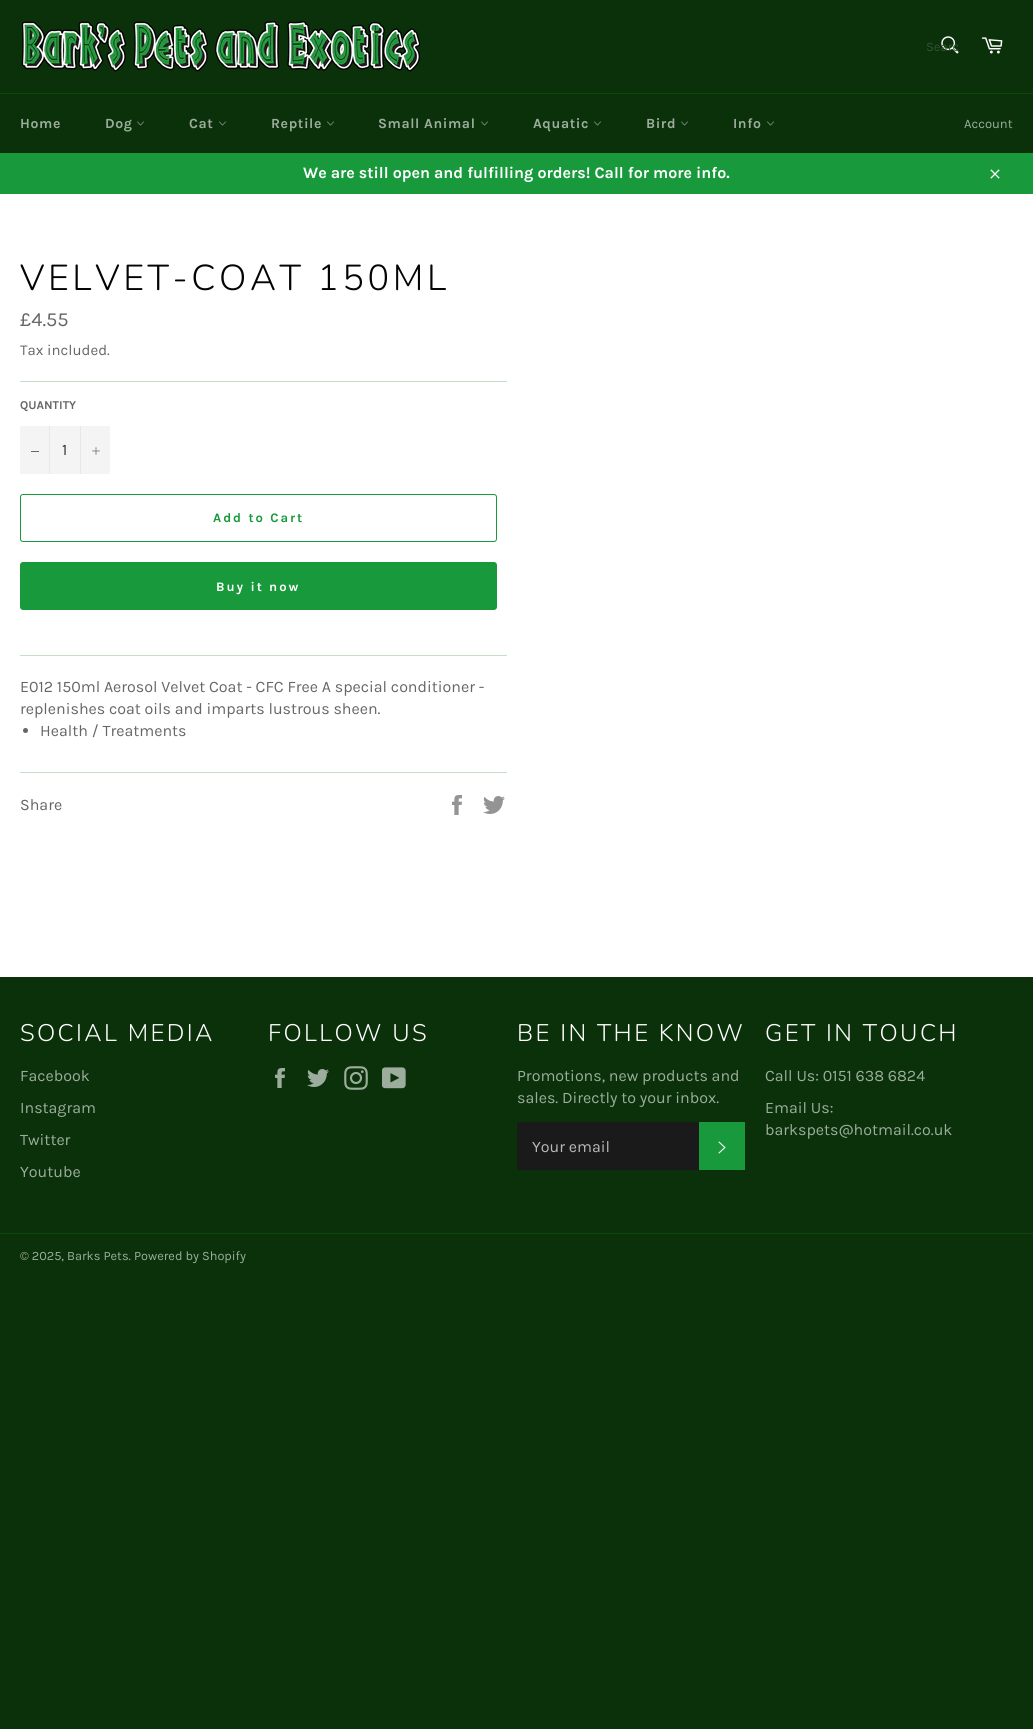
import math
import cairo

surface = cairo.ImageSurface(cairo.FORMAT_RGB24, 1033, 1729)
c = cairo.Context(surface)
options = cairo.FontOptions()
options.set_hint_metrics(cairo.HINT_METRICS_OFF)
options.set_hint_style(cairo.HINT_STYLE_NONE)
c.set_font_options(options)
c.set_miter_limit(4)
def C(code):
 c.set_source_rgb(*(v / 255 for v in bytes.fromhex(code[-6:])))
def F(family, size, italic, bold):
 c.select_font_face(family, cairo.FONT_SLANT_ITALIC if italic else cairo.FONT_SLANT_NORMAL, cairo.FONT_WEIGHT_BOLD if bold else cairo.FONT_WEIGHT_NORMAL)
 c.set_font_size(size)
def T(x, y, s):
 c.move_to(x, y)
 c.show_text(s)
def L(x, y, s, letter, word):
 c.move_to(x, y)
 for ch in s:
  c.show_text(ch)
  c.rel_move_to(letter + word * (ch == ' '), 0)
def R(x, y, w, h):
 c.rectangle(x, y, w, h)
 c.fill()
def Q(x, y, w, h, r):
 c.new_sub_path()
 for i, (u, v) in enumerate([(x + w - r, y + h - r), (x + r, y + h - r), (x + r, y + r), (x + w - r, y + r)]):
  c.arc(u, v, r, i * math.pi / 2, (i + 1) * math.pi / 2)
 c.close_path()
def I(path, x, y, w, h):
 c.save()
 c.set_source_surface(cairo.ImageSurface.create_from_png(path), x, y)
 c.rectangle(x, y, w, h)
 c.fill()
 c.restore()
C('0a3109')
c.paint()
I('1.png',21,21,399,51)
I('2.png',941,36,18,18)
F('Karla',13,0,0)
C('315230')
T(926,51,'Searc')
I('3.png',981,37,22,17)
C('0e470d')
R(0,93,1033,1)
F('Karla',14,0,1)
C('9dad9d')
L(20,128,'Home',.6,0)
L(105,128,'Dog',.6,0)
I('4.png',137,121,7,5)
L(189,128,'Cat',.6,0)
I('4.png',219,121,7,5)
L(271,128,'Reptile',.6,0)
I('4.png',327,121,7,5)
L(378,128,'Small Animal',.6,0)
I('4.png',481,121,7,5)
L(533,128,'Aquatic',.6,0)
I('4.png',594,121,7,5)
L(646,128,'Bird',.6,0)
I('4.png',681,121,7,5)
L(733,128,'Info',.6,0)
I('4.png',767,121,7,5)
F('Karla',13,0,0)
T(964,128,'Account')
C('17993c')
R(0,153,1033,41)
F('Karla',16,0,1)
C('ffffff')
T(303,178,'We are still open and fulfilling orders! Call for more info.')
I('5.png',990,169,10,10)
R(0,194,1033,783)
F('Nunito Light',36,0,0)
C('030303')
L(20,290,'VELVET-COAT 150ML',3.6,0)
F('Karla',20,0,0)
C('666666')
T(20,326,'£4.55')
F('Karla',15,0,0)
T(20,355,'Tax included.')
C('c3dfc7')
R(20,381,487,1)
F('Karla',12,0,1)
C('666666')
T(20,409,'QUANTITY')
C('f4f4f4')
R(20,426,90,48)
C('e7e7e7')
R(49,426,1,48)
C('666666')
R(31,451,8,1)
F('Karla',16,0,0)
C('333333')
T(62,455,'1')
C('e7e7e7')
R(80,426,1,48)
I('6.png',92,447,8,8)
Q(20.5,494.5,476,47,2.5)
C('17993c')
c.set_line_width(1)
c.stroke()
F('Karla',13,0,1)
L(213,522,'Add to Cart',2,0)
Q(20,562,477,48,3)
c.fill()
C('ffffff')
L(216,591,'Buy it now',2,0)
C('c3dfc7')
R(20,655,487,1)
F('Karla',16,0,0)
C('666666')
T(20,692,'E012 150ml Aerosol Velvet Coat - CFC Free A special conditioner -')
T(20,714,'replenishes coat oils and imparts lustrous sheen.')
c.new_path()
c.arc(25.5,730.5,2.5,0,2 * math.pi)
c.fill()
T(40,736,'Health / Treatments')
C('c3dfc7')
R(20,772,487,1)
C('666666')
T(20,810,'Share')
I('7.png',452,795,10,20)
I('8.png',483,796,22,18)
F('Nunito Light',24,0,0)
C('ffffff')
L(20,1041,'SOCIAL MEDIA',2.4,0)
F('Karla',16,0,0)
C('9dad9d')
T(20,1081,'Facebook')
T(20,1113,'Instagram')
T(20,1145,'Twitter')
T(20,1177,'Youtube')
F('Nunito Light',24,0,0)
C('ffffff')
L(268,1041,'FOLLOW US',2.4,0)
I('9.png',275,1068,10,20)
I('10.png',307,1069,22,18)
I('11.png',344,1066,24,24)
I('12.png',382,1067,24,22)
L(517,1041,'BE IN THE KNOW',2.4,0)
F('Karla',16,0,0)
C('9dad9d')
T(517,1081,'Promotions, new products and')
T(517,1103,'sales. Directly to your inbox.')
C('1a1a1a')
R(517,1122,182,48)
C('bababa')
T(532,1152,'Your email')
C('17993c')
R(699,1122,46,48)
I('13.png',718,1141,8,13)
F('Nunito Light',24,0,0)
C('ffffff')
L(765,1041,'GET IN TOUCH',2.4,0)
F('Karla',16,0,0)
C('9dad9d')
T(765,1081,'Call Us: 0151 638 6824')
T(765,1113,'Email Us:')
T(765,1135,'barkspets@hotmail.co.uk')
C('0e470d')
R(0,1233,1033,1)
F('Karla',12.75,0,0)
C('9dad9d')
T(20,1260,'© 2025, Barks Pets. Powered by Shopify')
surface.write_to_png('o.png')
